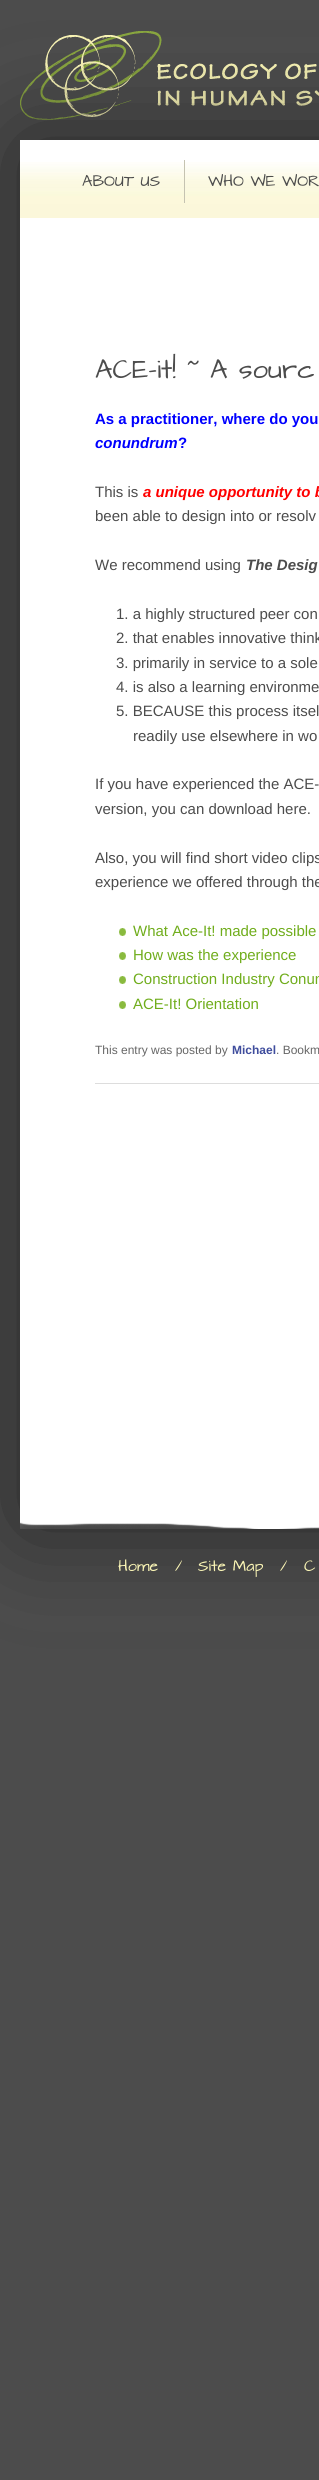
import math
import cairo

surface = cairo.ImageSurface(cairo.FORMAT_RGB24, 319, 2480)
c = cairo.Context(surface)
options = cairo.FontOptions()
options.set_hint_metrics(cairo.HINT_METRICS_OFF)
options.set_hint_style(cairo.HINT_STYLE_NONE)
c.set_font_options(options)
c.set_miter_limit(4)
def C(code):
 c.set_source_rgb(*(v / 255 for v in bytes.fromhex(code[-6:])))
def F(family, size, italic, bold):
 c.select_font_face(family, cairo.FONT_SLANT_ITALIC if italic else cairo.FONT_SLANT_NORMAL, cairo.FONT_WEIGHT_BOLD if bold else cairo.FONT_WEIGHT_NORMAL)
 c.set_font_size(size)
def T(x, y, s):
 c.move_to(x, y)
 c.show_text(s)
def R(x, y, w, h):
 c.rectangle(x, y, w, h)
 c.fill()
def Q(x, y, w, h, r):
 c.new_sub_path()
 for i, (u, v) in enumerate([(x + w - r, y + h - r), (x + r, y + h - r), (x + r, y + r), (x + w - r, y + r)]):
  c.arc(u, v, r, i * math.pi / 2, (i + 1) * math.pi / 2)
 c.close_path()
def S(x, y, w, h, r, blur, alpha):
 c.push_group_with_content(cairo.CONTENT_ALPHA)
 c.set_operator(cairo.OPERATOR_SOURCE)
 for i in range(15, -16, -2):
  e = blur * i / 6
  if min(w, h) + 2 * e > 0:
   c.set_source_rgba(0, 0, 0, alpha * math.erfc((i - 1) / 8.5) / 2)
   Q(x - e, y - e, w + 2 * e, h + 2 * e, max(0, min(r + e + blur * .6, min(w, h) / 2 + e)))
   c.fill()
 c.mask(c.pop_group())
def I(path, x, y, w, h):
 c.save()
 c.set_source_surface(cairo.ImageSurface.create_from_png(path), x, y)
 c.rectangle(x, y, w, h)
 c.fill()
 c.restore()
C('4c4c4c')
c.paint()
I('1.png',20,31,299,89)
C('222222')
S(25,145,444,1379,0,50,1)
C('ffffff')
R(20,140,299,1382)
I('2.png',20,1522,299,7)
I('3.png',20,162,299,56)
C('c5c3b1')
R(184,160,1,43)
F('Architects Daughter',13,0,0)
C('4c4c4c')
T(82,186,'ABOUT US')
T(208,186,'WHO WE WOR')
C('dddddd')
R(95,1083,224,1)
F('Architects Daughter',22,0,0)
C('4c4c4c')
T(95,378,'ACE-it! ~ A sourc')
F('Liberation Sans',15,0,1)
C('0000ff')
T(95,424,'As a practitioner, where do you')
F('Liberation Sans',15,1,1)
T(95,448,'conundrum')
F('Liberation Sans',15,0,1)
T(178,448,'?')
F('Liberation Sans',15,0,0)
C('4c4c4c')
T(95,497,'This is')
F('Liberation Sans',15,1,1)
C('ff0000')
T(143,497,'a unique opportunity to b')
F('Liberation Sans',15,0,0)
C('4c4c4c')
T(95,521,'been able to design into or resolv')
T(95,570,'We recommend using')
F('Liberation Sans',15,1,1)
T(246,570,'The Desig')
F('Liberation Sans',15,0,0)
T(116,619,'1. a highly structured peer con')
T(116,643,'2. that enables innovative think')
T(116,668,'3. primarily in service to a sole')
T(116,692,'4. is also a learning environme')
T(116,716,'5. BECAUSE this process itsel')
T(133,741,'readily use elsewhere in wo')
T(95,789,'If you have experienced the ACE-')
T(95,814,'version, you can download here.')
T(95,863,'Also, you will find short video clips')
T(95,887,'experience we offered through the')
I('4.png',119,928,7,8)
C('70ad1c')
T(133,936,'What Ace-It! made possible')
I('4.png',119,952,7,8)
T(133,960,'How was the experience')
I('4.png',119,976,7,8)
T(133,984,'Construction Industry Conun')
I('4.png',119,1001,7,8)
T(133,1009,'ACE-It! Orientation')
F('Liberation Sans',12,0,0)
C('666666')
T(95,1054,'This entry was posted by')
F('Liberation Sans',12,0,1)
C('3f4d9d')
T(232,1054,'Michael')
F('Liberation Sans',12,0,0)
C('666666')
T(276,1054,'. Bookm')
F('Architects Daughter',13,0,0)
C('faf5b5')
T(118,1571,'Home')
T(175,1571,'/')
T(198,1571,'Site Map')
T(280,1571,'/')
T(304,1571,'C')
surface.write_to_png('o.png')
